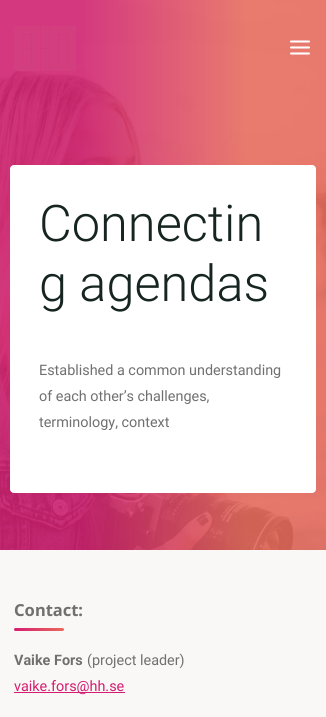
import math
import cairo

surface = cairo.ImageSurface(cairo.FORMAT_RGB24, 326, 717)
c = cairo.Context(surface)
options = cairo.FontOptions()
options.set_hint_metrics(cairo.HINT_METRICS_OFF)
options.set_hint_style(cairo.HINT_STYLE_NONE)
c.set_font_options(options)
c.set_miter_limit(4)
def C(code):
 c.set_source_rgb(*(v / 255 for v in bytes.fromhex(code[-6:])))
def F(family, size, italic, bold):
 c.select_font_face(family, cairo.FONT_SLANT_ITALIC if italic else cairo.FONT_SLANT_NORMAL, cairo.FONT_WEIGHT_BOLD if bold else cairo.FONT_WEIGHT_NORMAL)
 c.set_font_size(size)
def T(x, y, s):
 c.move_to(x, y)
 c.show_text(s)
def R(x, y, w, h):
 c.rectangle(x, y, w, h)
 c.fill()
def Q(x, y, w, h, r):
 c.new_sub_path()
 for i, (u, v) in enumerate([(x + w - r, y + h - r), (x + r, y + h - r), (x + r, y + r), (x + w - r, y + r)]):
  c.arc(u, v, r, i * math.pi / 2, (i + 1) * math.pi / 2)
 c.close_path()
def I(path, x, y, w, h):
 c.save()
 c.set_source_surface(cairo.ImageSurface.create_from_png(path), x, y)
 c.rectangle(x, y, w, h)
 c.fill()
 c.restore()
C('f9f8f6')
c.paint()
I('1.png',0,0,326,550)
I('2.png',14,26,62,45)
I('3.png',290,40,20,15)
C('ffffff')
Q(10,165,306,328,4)
c.fill()
F('Roboto Light',50.5,0,0)
C('162521')
T(39,241,'Connectin')
T(39,301,'g agendas')
F('Roboto',14.4,0,0)
C('707070')
T(39,375,'Established a common understanding')
T(39,401,'of each other’s challenges,')
T(39,427,'terminology, context')
F('Noto Sans',16.5,0,1)
T(14,616,'Contact:')
gradient = cairo.LinearGradient(14,630,64,630)
gradient.add_color_stop_rgba(0,0.831,0.114,0.439,1)
gradient.add_color_stop_rgba(1,0.918,0.412,0.357,1)
c.set_source(gradient)
Q(14,628,50,3,1.5)
c.fill()
F('Roboto',14.4,0,1)
C('707070')
T(14,665,'Vaike Fors')
F('Roboto',14.4,0,0)
T(87,665,'(project leader)')
C('d41d70')
R(14,692,111,1)
T(14,691,'vaike.fors@hh.se')
surface.write_to_png('o.png')
